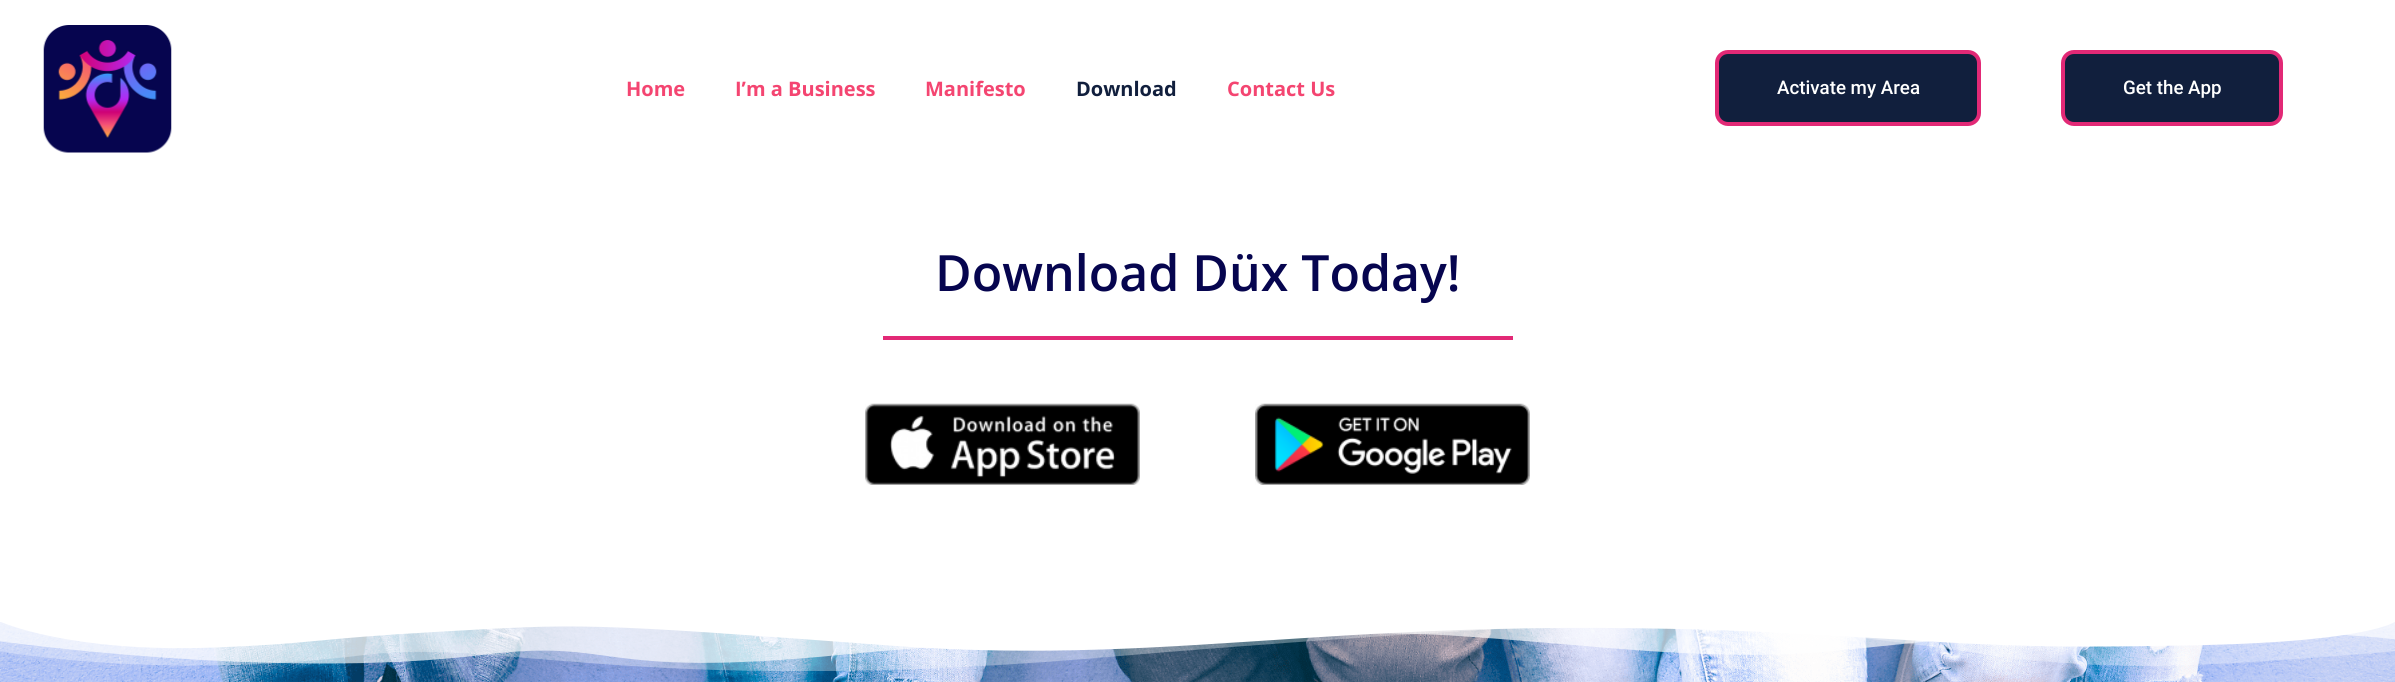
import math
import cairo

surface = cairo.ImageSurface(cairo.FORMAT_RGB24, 2395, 682)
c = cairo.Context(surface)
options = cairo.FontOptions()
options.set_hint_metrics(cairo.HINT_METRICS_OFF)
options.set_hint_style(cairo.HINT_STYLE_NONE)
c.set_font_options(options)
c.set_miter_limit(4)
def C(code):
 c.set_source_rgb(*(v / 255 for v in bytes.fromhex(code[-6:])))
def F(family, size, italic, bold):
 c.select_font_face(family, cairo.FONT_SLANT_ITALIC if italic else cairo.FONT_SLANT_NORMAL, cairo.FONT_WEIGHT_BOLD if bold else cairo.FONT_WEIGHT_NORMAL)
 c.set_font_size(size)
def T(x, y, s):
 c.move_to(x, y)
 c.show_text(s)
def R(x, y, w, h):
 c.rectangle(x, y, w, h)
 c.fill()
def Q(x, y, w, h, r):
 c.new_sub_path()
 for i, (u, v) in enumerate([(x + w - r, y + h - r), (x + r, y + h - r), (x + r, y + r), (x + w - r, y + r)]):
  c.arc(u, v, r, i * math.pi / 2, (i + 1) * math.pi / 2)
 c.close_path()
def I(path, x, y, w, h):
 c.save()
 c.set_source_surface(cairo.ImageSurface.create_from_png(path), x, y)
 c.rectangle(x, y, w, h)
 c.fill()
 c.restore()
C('ffffff')
c.paint()
I('1.png',43,25,129,128)
F('Open Sans',20,0,1)
C('f44571')
T(626,96,'Home')
T(735,96,'I’m a Business')
T(925,96,'Manifesto')
C('111f3d')
T(1076,96,'Download')
C('f44571')
T(1227,96,'Contact Us')
C('111f3d')
Q(1717,52,262,72,11)
c.fill_preserve()
C('e22976')
c.set_line_width(4)
c.stroke()
F('Roboto Medium',18.75,0,0)
C('ffffff')
T(1777,94,'Activate my Area')
C('111f3d')
Q(2063,52,218,72,11)
c.fill_preserve()
C('e22976')
c.stroke()
C('ffffff')
T(2123,94,'Get the App')
F('Open Sans SemiBold',50,0,0)
C('06054f')
T(935,291,'Download Düx Today!')
C('e22976')
R(883,336,630,4)
I('2.png',865,403,275,82)
I('3.png',1255,403,275,82)
I('4.png',0,622,2395,60)
I('5.png',0,622,2395,49)
surface.write_to_png('o.png')
